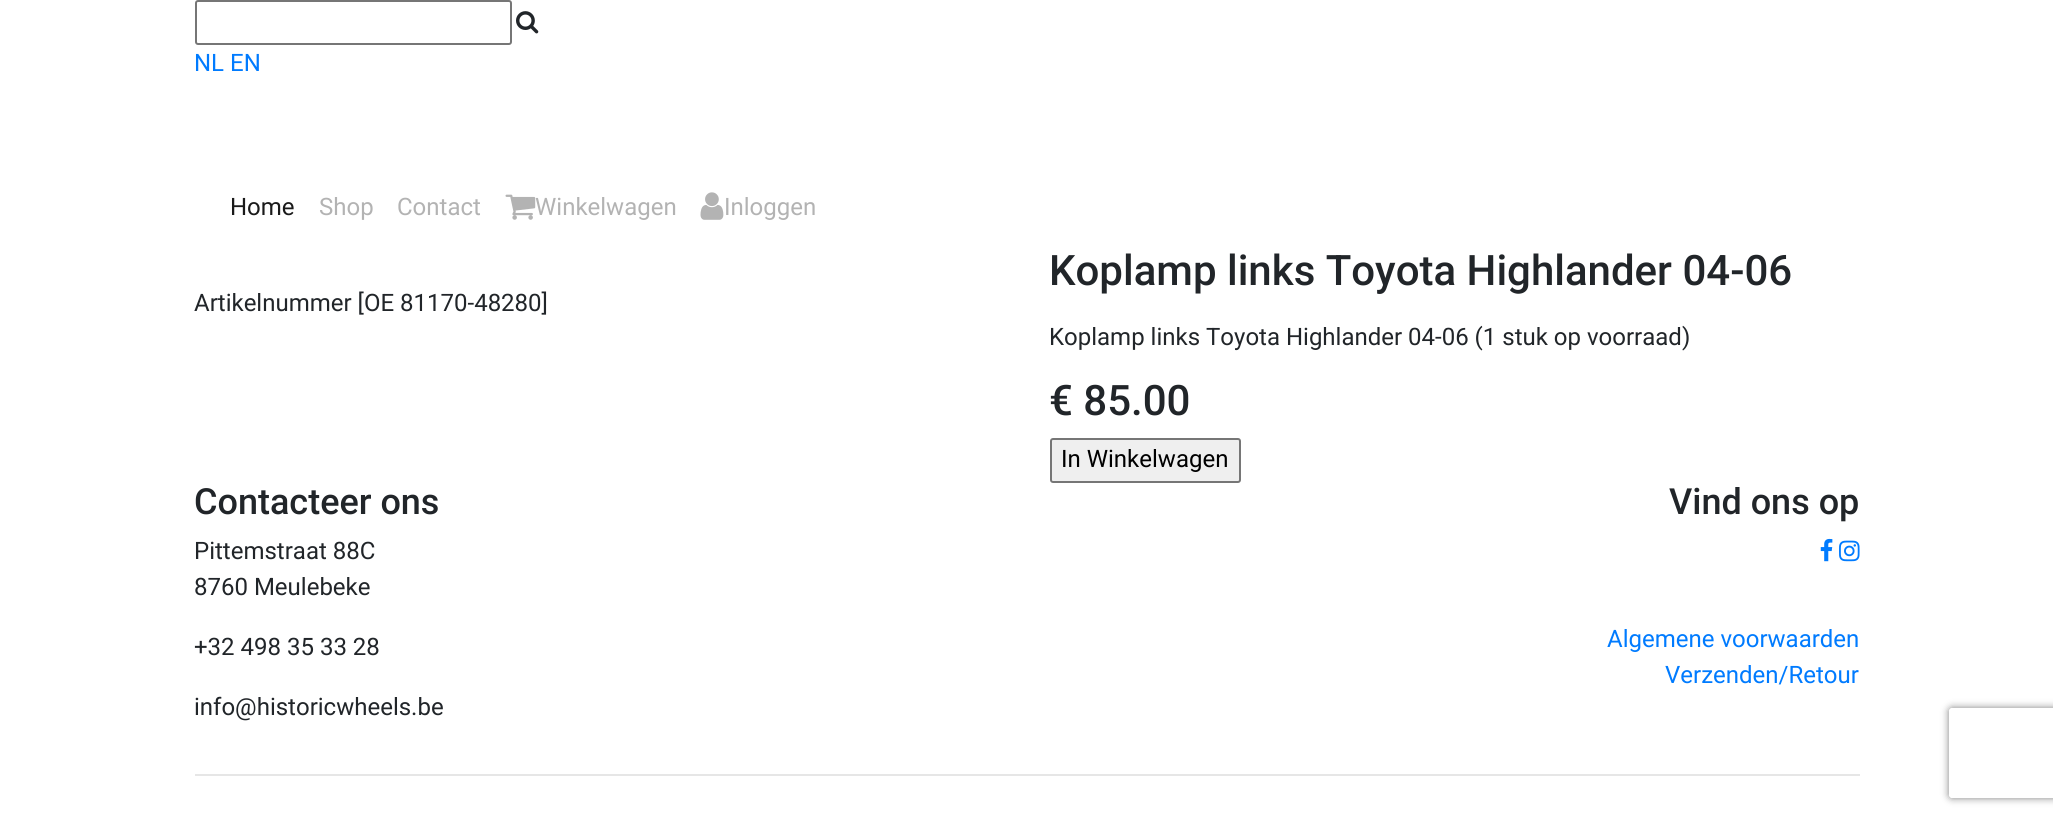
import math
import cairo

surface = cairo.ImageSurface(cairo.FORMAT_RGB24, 2053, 819)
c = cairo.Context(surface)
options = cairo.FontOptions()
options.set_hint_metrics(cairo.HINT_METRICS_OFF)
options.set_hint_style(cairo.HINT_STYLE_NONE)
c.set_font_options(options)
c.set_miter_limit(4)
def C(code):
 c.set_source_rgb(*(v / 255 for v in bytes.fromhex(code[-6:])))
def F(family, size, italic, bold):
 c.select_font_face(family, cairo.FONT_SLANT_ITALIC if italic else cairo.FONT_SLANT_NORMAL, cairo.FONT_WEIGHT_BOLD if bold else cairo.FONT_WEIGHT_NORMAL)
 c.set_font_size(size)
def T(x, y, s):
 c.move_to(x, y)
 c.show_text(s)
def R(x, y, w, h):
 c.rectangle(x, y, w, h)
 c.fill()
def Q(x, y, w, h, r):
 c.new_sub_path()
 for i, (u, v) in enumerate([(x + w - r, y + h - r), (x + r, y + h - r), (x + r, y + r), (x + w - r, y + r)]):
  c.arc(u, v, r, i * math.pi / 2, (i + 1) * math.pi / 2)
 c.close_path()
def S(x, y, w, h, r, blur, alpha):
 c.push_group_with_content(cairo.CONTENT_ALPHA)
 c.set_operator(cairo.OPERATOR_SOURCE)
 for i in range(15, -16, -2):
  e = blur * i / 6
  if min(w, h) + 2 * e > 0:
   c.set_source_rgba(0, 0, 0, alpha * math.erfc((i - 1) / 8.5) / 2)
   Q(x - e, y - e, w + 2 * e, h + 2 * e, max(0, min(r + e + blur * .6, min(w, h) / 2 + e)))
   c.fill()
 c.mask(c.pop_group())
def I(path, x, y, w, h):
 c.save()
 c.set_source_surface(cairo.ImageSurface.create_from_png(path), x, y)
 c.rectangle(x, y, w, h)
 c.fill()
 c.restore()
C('ffffff')
c.paint()
Q(196,1,315,43,2)
C('767676')
c.stroke()
I('1.png',516,11,23,23)
F('Roboto',24,0,0)
C('007bff')
T(194,71,'NL EN')
C('1a1a1a')
T(230,215,'Home')
C('b3b3b3')
T(319,215,'Shop')
T(397,215,'Contact')
I('2.png',505,194,31,26)
T(535,215,'Winkelwagen')
I('3.png',700,192,24,28)
T(724,215,'Inloggen')
C('212529')
T(194,311,'Artikelnummer [OE 81170-48280]')
F('Roboto Medium',42,0,0)
T(1049,285,'Koplamp links Toyota Highlander 04-06')
F('Roboto',24,0,0)
T(1049,345,'Koplamp links Toyota Highlander 04-06 (1 stuk op voorraad)')
F('Roboto Medium',42,0,0)
T(1049,415,'€ 85.00')
C('efefef')
Q(1051,439,189,43,2)
c.fill_preserve()
C('767676')
c.stroke()
F('Roboto',24,0,0)
C('000000')
T(1061,467,'In Winkelwagen')
F('Roboto Medium',36,0,0)
C('212529')
T(194,514,'Contacteer ons')
F('Roboto',24,0,0)
T(194,559,'Pittemstraat 88C')
T(194,595,'8760 Meulebeke')
T(194,655,'+32 498 35 33 28')
T(194,715,'info@historicwheels.be')
F('Roboto Medium',36,0,0)
T(1669,514,'Vind ons op')
I('4.png',1820,538,13,24)
I('5.png',1839,540,21,22)
F('Roboto',24,0,0)
C('007bff')
T(1607,647,'Algemene voorwaarden')
T(1665,683,'Verzenden/Retour')
C('e6e6e6')
R(195,774,1665,2)
c.save()
c.set_fill_rule(cairo.FILL_RULE_EVEN_ODD)
c.new_path()
c.move_to(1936,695)
c.line_to(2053,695)
c.line_to(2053,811)
c.line_to(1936,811)
c.close_path()
c.move_to(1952,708)
c.line_to(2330,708)
c.curve_to(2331.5,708,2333,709.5,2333,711)
c.line_to(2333,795)
c.curve_to(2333,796.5,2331.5,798,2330,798)
c.line_to(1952,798)
c.curve_to(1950.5,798,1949,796.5,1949,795)
c.line_to(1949,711)
c.curve_to(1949,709.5,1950.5,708,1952,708)
c.close_path()
c.clip()
C('808080')
S(1949,708,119,90,3,4,1)
c.restore()
surface.write_to_png('o.png')
